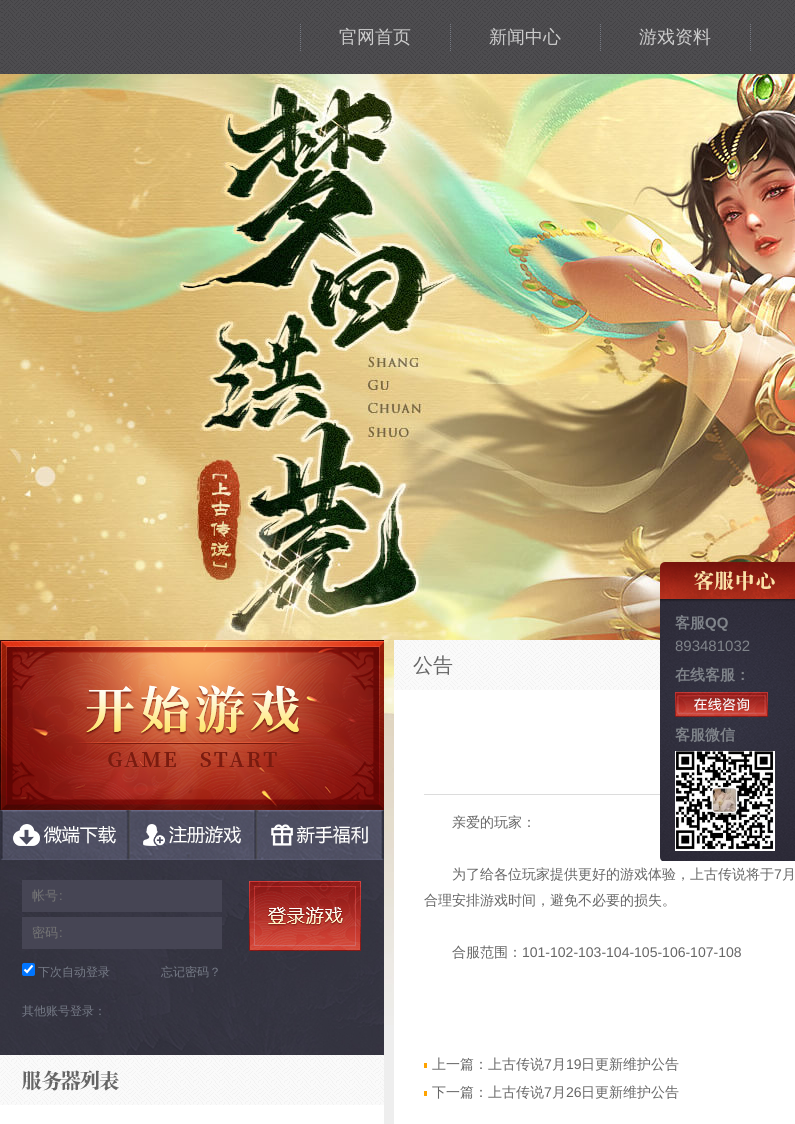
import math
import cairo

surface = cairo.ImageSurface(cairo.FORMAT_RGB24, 795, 1124)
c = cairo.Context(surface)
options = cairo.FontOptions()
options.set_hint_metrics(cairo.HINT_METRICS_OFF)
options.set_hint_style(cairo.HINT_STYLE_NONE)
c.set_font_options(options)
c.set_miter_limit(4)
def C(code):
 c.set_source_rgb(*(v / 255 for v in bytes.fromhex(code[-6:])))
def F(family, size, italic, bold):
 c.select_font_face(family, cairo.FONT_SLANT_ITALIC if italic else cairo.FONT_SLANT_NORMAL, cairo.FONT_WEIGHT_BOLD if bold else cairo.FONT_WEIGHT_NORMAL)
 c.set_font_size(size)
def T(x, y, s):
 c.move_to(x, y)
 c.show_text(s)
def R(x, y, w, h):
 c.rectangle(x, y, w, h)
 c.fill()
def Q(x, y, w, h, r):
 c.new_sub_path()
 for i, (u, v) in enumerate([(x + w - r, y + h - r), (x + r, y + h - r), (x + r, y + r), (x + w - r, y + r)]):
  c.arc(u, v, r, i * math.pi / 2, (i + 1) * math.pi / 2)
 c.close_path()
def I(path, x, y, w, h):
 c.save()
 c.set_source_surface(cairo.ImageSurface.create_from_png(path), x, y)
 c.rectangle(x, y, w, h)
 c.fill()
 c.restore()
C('eeeeee')
c.paint()
I('1.png',0,74,795,951)
I('2.png',0,0,795,74)
I('3.png',300,24,1,27)
F('WenQuanYi Zen Hei Medium',18,0,0)
C('cccccc')
T(339,43,'官网首页')
I('4.png',450,24,1,27)
T(489,43,'新闻中心')
I('5.png',600,24,1,27)
T(639,43,'游戏资料')
I('6.png',750,24,1,27)
I('7.png',0,640,384,170)
I('8.png',0,810,128,50)
I('9.png',128,810,128,50)
I('10.png',256,810,128,50)
I('11.png',0,860,384,195)
C('464554')
R(22,880,200,32)
F('WenQuanYi Zen Hei Medium',13,0,0)
C('757575')
T(32,900,'帐号')
F('Liberation Sans',13,0,0)
T(59,900,':')
C('464554')
R(22,917,200,32)
F('WenQuanYi Zen Hei Medium',13,0,0)
C('757575')
T(32,937,'密码')
F('Liberation Sans',13,0,0)
T(59,937,':')
I('12.png',249,881,112,70)
C('0075ff')
Q(22,963,13,13,2)
c.fill()
c.new_path()
c.move_to(24.5,969.5)
c.line_to(27,972)
c.line_to(32.5,965.5)
C('ffffff')
c.set_line_width(2.1)
c.stroke()
F('WenQuanYi Zen Hei Medium',12,0,0)
C('767b87')
T(38,976,'下次自动登录')
T(161,976,'忘记密码？')
T(22,1015,'其他账号登录：')
I('13.png',0,1055,384,50)
I('14.png',21,1070,98,21)
C('ffffff')
R(0,1105,384,19)
R(394,690,401,434)
I('15.png',394,640,266,50)
F('WenQuanYi Zen Hei Medium',20,0,0)
C('666666')
T(413,672,'公告')
C('dcdcdc')
R(424,794,236,1)
F('WenQuanYi Zen Hei Medium',14,0,0)
C('666666')
T(452,827,'亲爱的玩家：')
T(452,879,'为了给各位玩家提供更好的游戏体验，上古传说将于')
F('Liberation Sans',14,0,0)
T(774,879,'7')
F('WenQuanYi Zen Hei Medium',14,0,0)
T(782,879,'月')
T(424,905,'合理安排游戏时间，避免不必要的损失。')
T(452,957,'合服范围：')
F('Liberation Sans',14,0,0)
T(522,957,'101-102-103-104-105-106-107-108')
C('fea300')
R(424,1063,3,5)
F('WenQuanYi Zen Hei Medium',14,0,0)
C('666666')
T(432,1069,'上一篇：上古传说')
F('Liberation Sans',14,0,0)
T(544,1069,'7')
F('WenQuanYi Zen Hei Medium',14,0,0)
T(552,1069,'月')
F('Liberation Sans',14,0,0)
T(566,1069,'19')
F('WenQuanYi Zen Hei Medium',14,0,0)
T(581,1069,'日更新维护公告')
C('fea300')
R(424,1091,3,5)
C('666666')
T(432,1097,'下一篇：上古传说')
F('Liberation Sans',14,0,0)
T(544,1097,'7')
F('WenQuanYi Zen Hei Medium',14,0,0)
T(552,1097,'月')
F('Liberation Sans',14,0,0)
T(566,1097,'26')
F('WenQuanYi Zen Hei Medium',14,0,0)
T(581,1097,'日更新维护公告')
I('16.png',660,562,135,299)
F('WenQuanYi Zen Hei',15,0,1)
C('80848a')
T(675,628,'客服')
F('Liberation Sans',15,0,1)
T(705,628,'QQ')
F('Liberation Sans',15,0,0)
T(675,651,'893481032')
F('WenQuanYi Zen Hei',15,0,1)
T(675,680,'在线客服：')
I('17.png',675,692,93,25)
T(675,740,'客服微信')
I('18.png',675,751,100,100)
surface.write_to_png('o.png')
